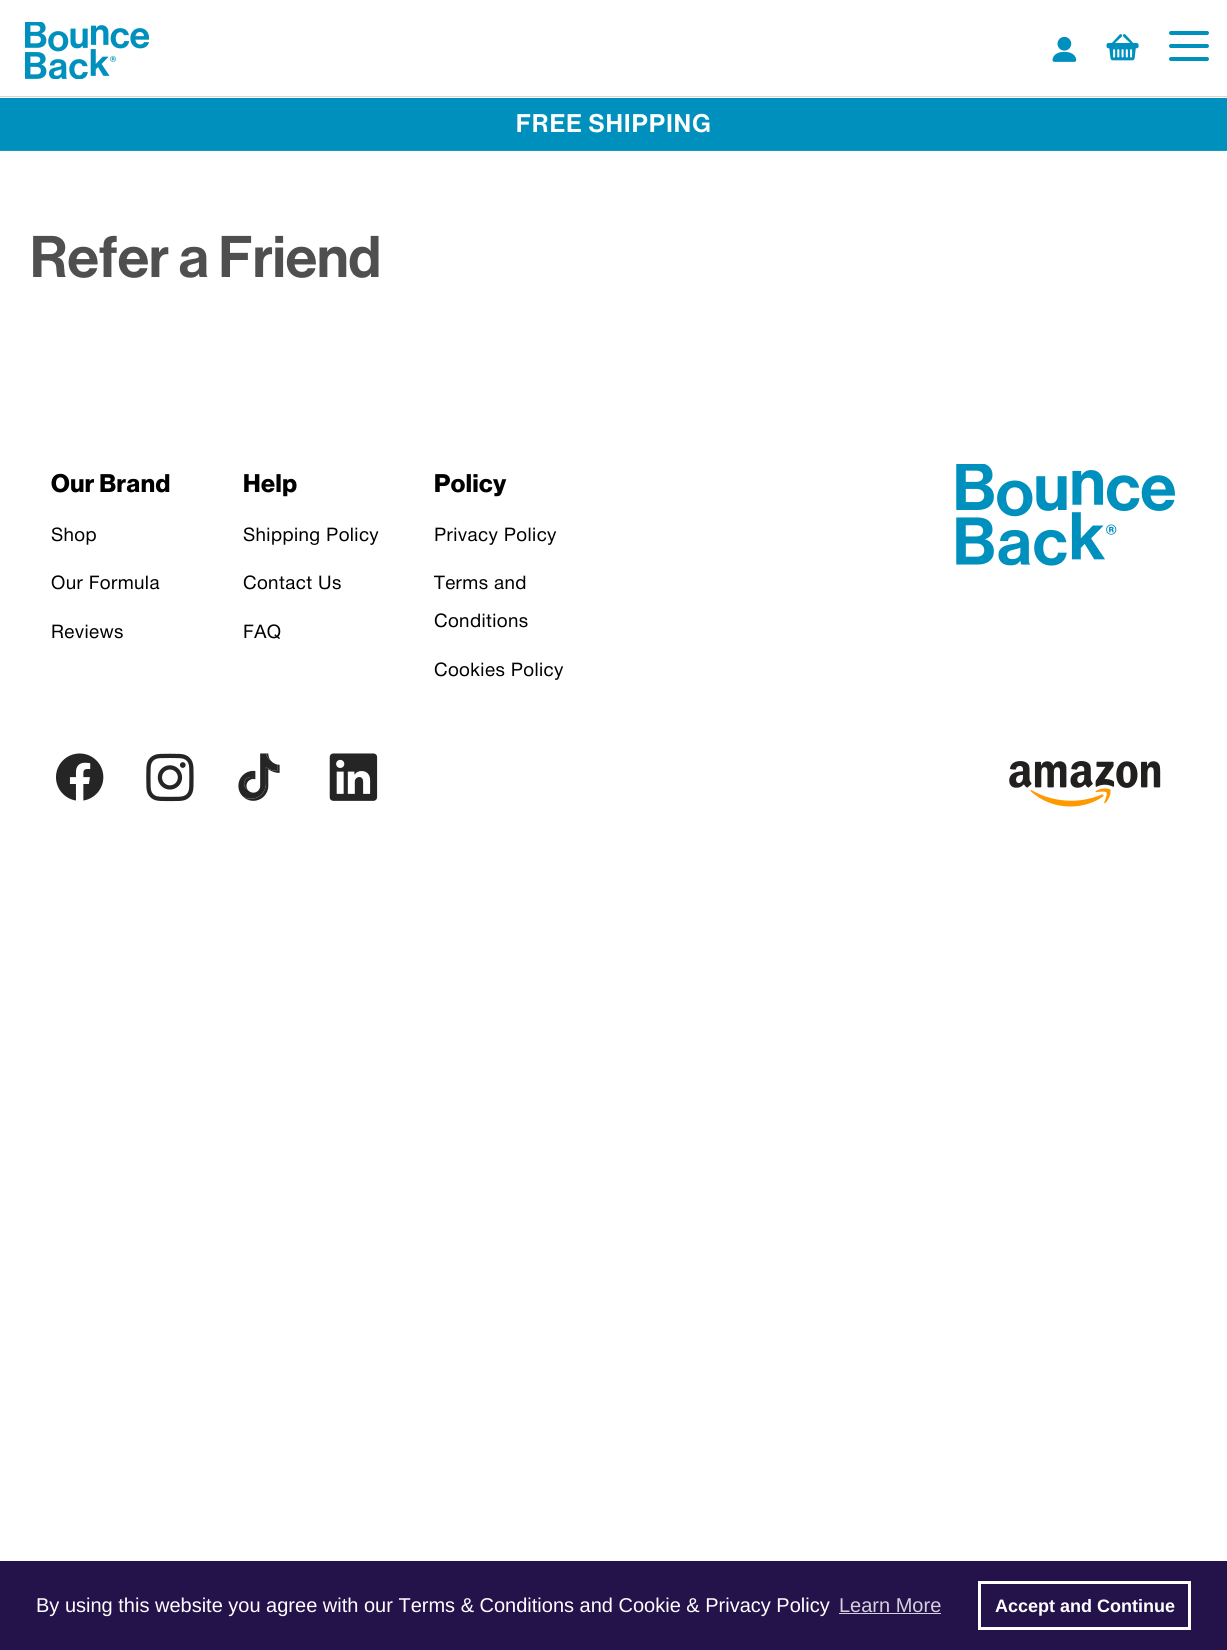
import math
import cairo

surface = cairo.ImageSurface(cairo.FORMAT_RGB24, 1227, 1650)
c = cairo.Context(surface)
options = cairo.FontOptions()
options.set_hint_metrics(cairo.HINT_METRICS_OFF)
options.set_hint_style(cairo.HINT_STYLE_NONE)
c.set_font_options(options)
c.set_miter_limit(4)
def C(code):
 c.set_source_rgb(*(v / 255 for v in bytes.fromhex(code[-6:])))
def F(family, size, italic, bold):
 c.select_font_face(family, cairo.FONT_SLANT_ITALIC if italic else cairo.FONT_SLANT_NORMAL, cairo.FONT_WEIGHT_BOLD if bold else cairo.FONT_WEIGHT_NORMAL)
 c.set_font_size(size)
def T(x, y, s):
 c.move_to(x, y)
 c.show_text(s)
def L(x, y, s, letter, word):
 c.move_to(x, y)
 for ch in s:
  c.show_text(ch)
  c.rel_move_to(letter + word * (ch == ' '), 0)
def R(x, y, w, h):
 c.rectangle(x, y, w, h)
 c.fill()
def Q(x, y, w, h, r):
 c.new_sub_path()
 for i, (u, v) in enumerate([(x + w - r, y + h - r), (x + r, y + h - r), (x + r, y + r), (x + w - r, y + r)]):
  c.arc(u, v, r, i * math.pi / 2, (i + 1) * math.pi / 2)
 c.close_path()
def I(path, x, y, w, h):
 c.save()
 c.set_source_surface(cairo.ImageSurface.create_from_png(path), x, y)
 c.rectangle(x, y, w, h)
 c.fill()
 c.restore()
C('ffffff')
c.paint()
C('d7d7d7')
R(0,96,1227,1)
I('1.png',25,22,124,57)
I('2.png',1052,36,25,26)
I('3.png',1106,34,33,27)
C('0090bd')
Q(1169,31,40,4,2)
c.fill()
Q(1169,44,40,4,2)
c.fill()
Q(1169,57,40,4,2)
c.fill()
R(0,98,1227,52)
C('1499c2')
R(0,150,1227,1)
F('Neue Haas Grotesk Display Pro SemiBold',25,0,0)
C('ffffff')
L(516,132,'FREE SHIPPING',1.25,0)
F('Neue Haas Grotesk Display Pro SemiBold',57.5,0,0)
C('4f4f4f')
T(30,277,'Refer a Friend')
F('Neue Haas Grotesk Display Pro',25,0,1)
C('000000')
L(51,492,'Our Brand',.5,0)
F('Helvetica Neue',18.75,0,0)
L(51,541,'Shop',.4,0)
L(51,589,'Our Formula',.4,0)
L(51,638,'Reviews',.4,0)
F('Neue Haas Grotesk Display Pro',25,0,1)
L(243,492,'Help',.5,0)
F('Helvetica Neue',18.75,0,0)
L(243,541,'Shipping Policy',.4,0)
L(243,589,'Contact Us',.4,0)
L(243,638,'FAQ',.4,0)
F('Neue Haas Grotesk Display Pro',25,0,1)
L(434,492,'Policy',.5,0)
F('Helvetica Neue',18.75,0,0)
L(434,541,'Privacy Policy',.4,0)
L(434,589,'Terms and',.4,0)
L(434,627,'Conditions',.4,0)
L(434,676,'Cookies Policy',.4,0)
I('4.png',956,464,219,102)
I('5.png',56,753,48,48)
I('6.png',146,753,48,49)
I('7.png',238,753,42,48)
I('8.png',329,753,49,48)
I('9.png',1009,761,152,46)
C('24134b')
R(0,1561,1227,89)
F('Liberation Sans',20,0,0)
C('ffffff')
T(36,1612,'By using this website you agree with our Terms & Conditions and Cookie & Privacy Policy')
C('d3d0db')
T(839,1612,'Learn More')
R(839,1613,102,1)
c.rectangle(979.5,1582.5,210,46)
C('ffffff')
c.set_line_width(3)
c.stroke()
F('Liberation Sans',18,0,1)
T(995,1612,'Accept and Continue')
surface.write_to_png('o.png')
